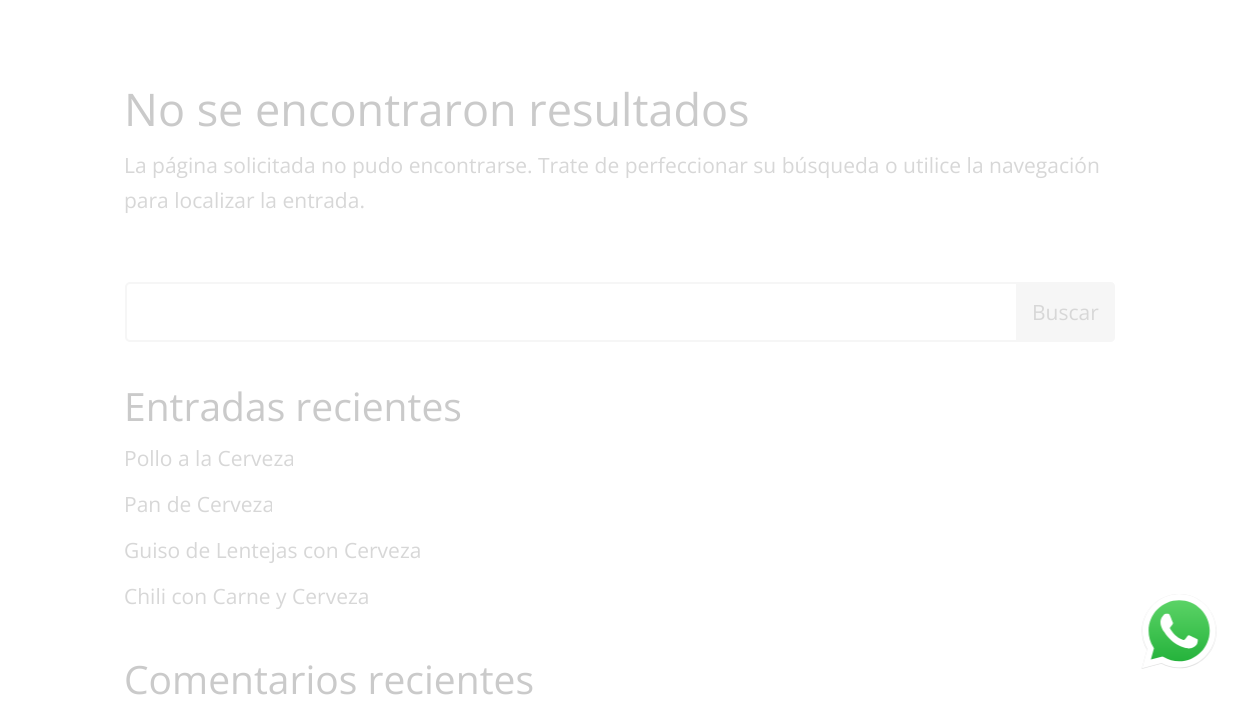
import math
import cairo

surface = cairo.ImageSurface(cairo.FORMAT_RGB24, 1239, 702)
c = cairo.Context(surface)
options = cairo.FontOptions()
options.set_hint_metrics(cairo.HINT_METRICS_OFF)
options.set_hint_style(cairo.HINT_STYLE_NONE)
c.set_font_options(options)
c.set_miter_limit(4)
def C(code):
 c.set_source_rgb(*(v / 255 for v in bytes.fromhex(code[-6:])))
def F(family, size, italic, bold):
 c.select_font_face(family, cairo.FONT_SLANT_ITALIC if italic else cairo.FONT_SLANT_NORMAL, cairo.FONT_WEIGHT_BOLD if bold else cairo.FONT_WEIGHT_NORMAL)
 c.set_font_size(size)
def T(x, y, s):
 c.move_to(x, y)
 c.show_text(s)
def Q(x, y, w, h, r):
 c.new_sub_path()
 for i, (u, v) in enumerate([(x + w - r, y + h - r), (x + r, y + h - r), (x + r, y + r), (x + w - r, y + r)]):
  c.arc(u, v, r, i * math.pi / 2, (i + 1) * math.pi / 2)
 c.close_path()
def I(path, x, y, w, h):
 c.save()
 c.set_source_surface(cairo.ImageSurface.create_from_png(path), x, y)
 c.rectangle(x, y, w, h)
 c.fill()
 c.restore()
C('ffffff')
c.paint()
F('Open Sans',45,0,0)
C('cacaca')
T(124,126,'No se encontraron resultados')
F('Open Sans',21,0,0)
C('d7d7d7')
T(124,173,'La página solicitada no pudo encontrarse. Trate de perfeccionar su búsqueda o utilice la navegación')
T(124,208,'para localizar la entrada.')
Q(126,283,988,58,4)
C('f6f6f6')
c.stroke()
c.new_path()
c.move_to(1016,282)
c.line_to(1110,282)
c.curve_to(1113,282,1115,284,1115,287)
c.line_to(1115,337)
c.curve_to(1115,340,1113,342,1110,342)
c.line_to(1016,342)
c.close_path()
c.fill()
C('d7d7d7')
T(1032,320,'Buscar')
F('Open Sans',39,0,0)
C('cacaca')
T(124,421,'Entradas recientes')
F('Open Sans',21,0,0)
C('d7d7d7')
T(124,466,'Pollo a la Cerveza')
T(124,512,'Pan de Cerveza')
T(124,558,'Guiso de Lentejas con Cerveza')
T(124,604,'Chili con Carne y Cerveza')
F('Open Sans',39,0,0)
C('cacaca')
T(124,694,'Comentarios recientes')
I('1.png',1141,594,76,75)
surface.write_to_png('o.png')
